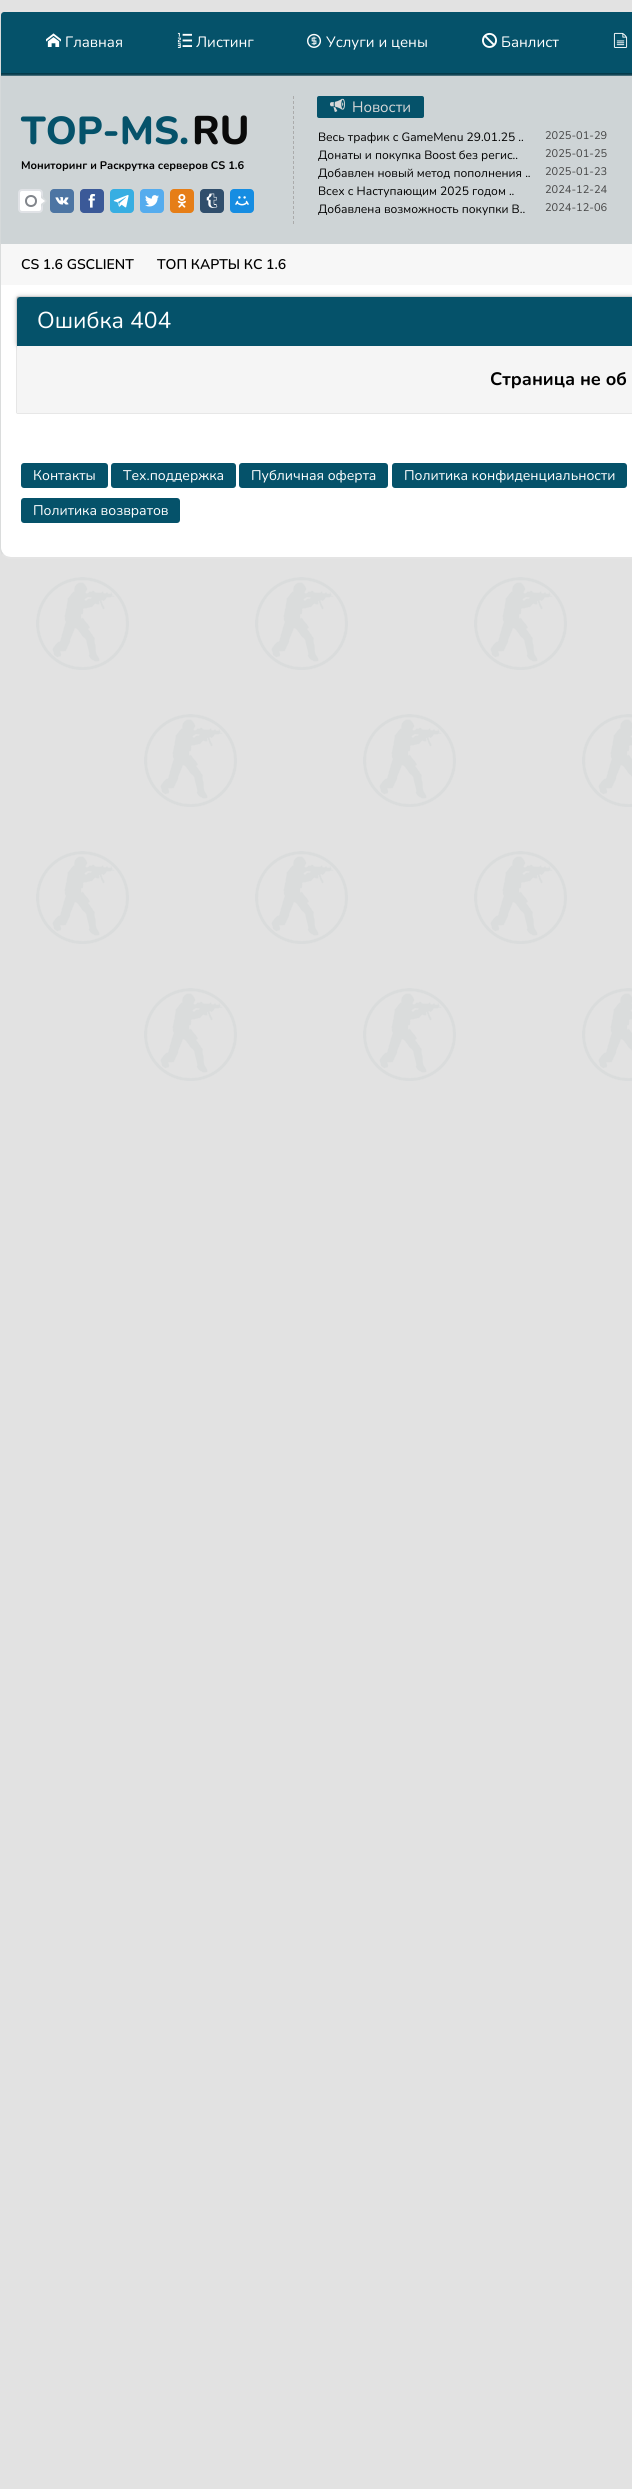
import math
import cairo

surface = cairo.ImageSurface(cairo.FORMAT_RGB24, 632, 2489)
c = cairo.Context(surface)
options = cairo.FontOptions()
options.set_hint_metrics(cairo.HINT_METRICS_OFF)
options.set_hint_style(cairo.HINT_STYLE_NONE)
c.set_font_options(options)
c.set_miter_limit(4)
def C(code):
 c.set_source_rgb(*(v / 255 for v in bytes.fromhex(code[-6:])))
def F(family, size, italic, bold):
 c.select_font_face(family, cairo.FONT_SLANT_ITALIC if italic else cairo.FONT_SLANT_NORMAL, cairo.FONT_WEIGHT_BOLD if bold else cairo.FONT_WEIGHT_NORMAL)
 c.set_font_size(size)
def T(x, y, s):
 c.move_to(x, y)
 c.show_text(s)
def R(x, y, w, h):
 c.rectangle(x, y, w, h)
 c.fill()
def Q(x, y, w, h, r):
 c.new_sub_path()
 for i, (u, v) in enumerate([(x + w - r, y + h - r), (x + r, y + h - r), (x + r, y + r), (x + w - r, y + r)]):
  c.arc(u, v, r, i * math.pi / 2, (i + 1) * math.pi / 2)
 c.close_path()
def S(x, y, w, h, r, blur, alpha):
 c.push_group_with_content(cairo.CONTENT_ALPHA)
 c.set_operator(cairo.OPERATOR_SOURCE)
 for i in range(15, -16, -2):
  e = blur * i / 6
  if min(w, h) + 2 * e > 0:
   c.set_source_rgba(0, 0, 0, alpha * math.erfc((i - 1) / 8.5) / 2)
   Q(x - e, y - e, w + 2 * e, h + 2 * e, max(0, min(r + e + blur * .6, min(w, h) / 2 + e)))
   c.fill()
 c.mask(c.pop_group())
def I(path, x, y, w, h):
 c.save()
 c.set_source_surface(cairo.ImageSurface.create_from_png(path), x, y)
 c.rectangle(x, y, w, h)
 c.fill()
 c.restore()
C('e2e2e2')
c.paint()
I('1.png',36,577,596,504)
C('ffffff')
c.new_path()
c.move_to(11,12)
c.line_to(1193,12)
c.curve_to(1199,12,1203,16,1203,21)
c.line_to(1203,548)
c.curve_to(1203,553,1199,557,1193,557)
c.line_to(11,557)
c.curve_to(5,557,1,553,1,548)
c.line_to(1,21)
c.curve_to(1,16,5,12,11,12)
c.close_path()
c.fill()
C('e4e4e4')
c.new_path()
c.move_to(11,10)
c.curve_to(7,10,4,12,2,14)
c.line_to(3,16)
c.curve_to(5,13,7,12,11,12)
c.line_to(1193,12)
c.curve_to(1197,12,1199,13,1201,16)
c.line_to(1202,14)
c.curve_to(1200,12,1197,10,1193,10)
c.close_path()
c.fill()
c.new_path()
c.move_to(11,559)
c.line_to(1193,559)
c.curve_to(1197,559,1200,557,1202,555)
c.line_to(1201,553)
c.curve_to(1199,556,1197,557,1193,557)
c.line_to(11,557)
c.curve_to(7,557,5,556,3,553)
c.line_to(2,555)
c.curve_to(4,557,7,559,11,559)
c.close_path()
c.fill()
C('dadcdc')
c.new_path()
c.move_to(0,21)
c.line_to(0,548)
c.curve_to(0,550,1,553,2,555)
c.line_to(3,553)
c.curve_to(2,552,1,550,1,548)
c.line_to(1,21)
c.curve_to(1,19,2,17,3,16)
c.line_to(2,14)
c.curve_to(1,16,0,19,0,21)
c.close_path()
c.fill()
C('05526a')
c.new_path()
c.move_to(4,12)
c.line_to(632,12)
c.curve_to(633.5,12,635,13.5,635,15)
c.line_to(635,76)
c.line_to(1,76)
c.line_to(1,15)
c.curve_to(1,13.5,2.5,12,4,12)
c.close_path()
c.fill()
C('02394a')
R(1,73,631,3)
I('2.png',46,33,15,14)
F('Nunito',15,0,0)
C('ffffff')
T(65,47,'Главная')
I('3.png',177,32,15,16)
T(196,47,'Листинг')
I('4.png',307,33,15,15)
T(326,47,'Услуги и цены')
I('5.png',482,32,15,16)
T(501,47,'Банлист')
I('6.png',613,32,15,16)
C('ced4d6')
S(1,76,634,168,0,1,1)
C('ced4d6')
R(1,76,631,168)
c.new_path()
c.move_to(293.5,96)
c.line_to(293.5,224)
C('ababab')
c.set_line_width(1)
c.set_dash([3,2])
c.stroke()
F('Nunito ExtraBold',39,0,0)
C('05526a')
T(21,144,'TOP-MS.')
F('Nunito ExtraBold',40,0,0)
C('0a0a0a')
T(192,144,'RU')
F('Nunito',11,0,1)
C('000000')
T(21,169,'Мониторинг и Раскрутка серверов CS 1.6')
C('ffffff')
Q(19,190,23,22,3)
c.fill_preserve()
C('e0e2e6')
c.set_line_width(2)
c.set_dash([])
c.stroke()
c.arc(31,201,5,0,2 * math.pi)
C('81858b')
c.stroke()
C('d8dcde')
c.new_path()
c.move_to(41,207)
c.line_to(41,195)
c.line_to(47,201)
c.close_path()
c.fill()
C('ffffff')
c.new_path()
c.move_to(41,204)
c.line_to(41,198)
c.line_to(45,201)
c.close_path()
c.fill()
C('4d75a3')
Q(50,189,24,24,4)
c.fill()
I('7.png',55,197,14,8)
C('3b5998')
Q(80,189,24,24,4)
c.fill()
I('8.png',88,194,8,14)
C('37aee2')
Q(110,189,24,24,4)
c.fill()
I('9.png',113,195,16,13)
C('55acee')
Q(140,189,24,24,4)
c.fill()
I('10.png',145,195,14,12)
C('e67e17')
Q(170,189,24,24,4)
c.fill()
I('11.png',177,194,9,14)
C('304e6c')
Q(200,189,24,24,4)
c.fill()
I('12.png',206,193,12,15)
C('168de2')
Q(230,189,24,24,4)
c.fill()
I('13.png',235,196,14,10)
C('05526a')
Q(317,96,107,22,2)
c.fill()
I('14.png',330,98,15,14)
F('Nunito',15,0,0)
C('d8d8d8')
T(352,112,'Новости')
F('Nunito',12,0,0)
C('000000')
T(318,141,'Весь трафик с GameMenu 29.01.25 ..')
F('Nunito',11,0,0)
C('444444')
T(545,139,'2025-01-29')
F('Nunito',12,0,0)
C('000000')
T(318,159,'Донаты и покупка Boost без регис..')
F('Nunito',11,0,0)
C('444444')
T(545,157,'2025-01-25')
F('Nunito',12,0,0)
C('000000')
T(318,177,'Добавлен новый метод пополнения ..')
F('Nunito',11,0,0)
C('444444')
T(545,175,'2025-01-23')
F('Nunito',12,0,0)
C('000000')
T(318,195,'Всех с Наступающим 2025 годом ..')
F('Nunito',11,0,0)
C('444444')
T(545,193,'2024-12-24')
F('Nunito',12,0,0)
C('000000')
T(318,213,'Добавлена возможность покупки B..')
F('Nunito',11,0,0)
C('444444')
T(545,211,'2024-12-06')
C('f7f7f7')
R(1,244,631,41)
F('Nunito SemiBold',14,0,0)
C('000000')
T(21,269,'CS 1.6 GSCLIENT')
T(157,269,'ТОП КАРТЫ КС 1.6')
C('9c9c9c')
S(17,297,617,116,0,.5,1)
C('b1b1b1')
S(17,297,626,49,3,2.5,1)
C('05526a')
c.new_path()
c.move_to(20,297)
c.line_to(632,297)
c.curve_to(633.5,297,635,298.5,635,300)
c.line_to(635,346)
c.line_to(17,346)
c.line_to(17,300)
c.curve_to(17,298.5,18.5,297,20,297)
c.close_path()
c.fill()
F('Nunito',23,0,0)
C('ffffff')
T(37,328,'Ошибка 404')
C('f5f5f5')
R(17,346,615,67)
F('Nunito',18,0,1)
C('000000')
T(490,385,'Страница не об')
C('05526a')
Q(21,463,87,25,3)
c.fill()
F('Nunito',14,0,0)
C('ffffff')
T(33,480,'Контакты')
C('05526a')
Q(111,463,125,25,3)
c.fill()
C('ffffff')
T(123,480,'Тех.поддержка')
C('05526a')
Q(239,463,149,25,3)
c.fill()
C('ffffff')
T(251,480,'Публичная оферта')
C('05526a')
Q(392,463,235,25,3)
c.fill()
C('ffffff')
T(404,480,'Политика конфиденциальности')
C('05526a')
Q(21,498,159,25,3)
c.fill()
C('ffffff')
T(33,515,'Политика возвратов')
surface.write_to_png('o.png')
